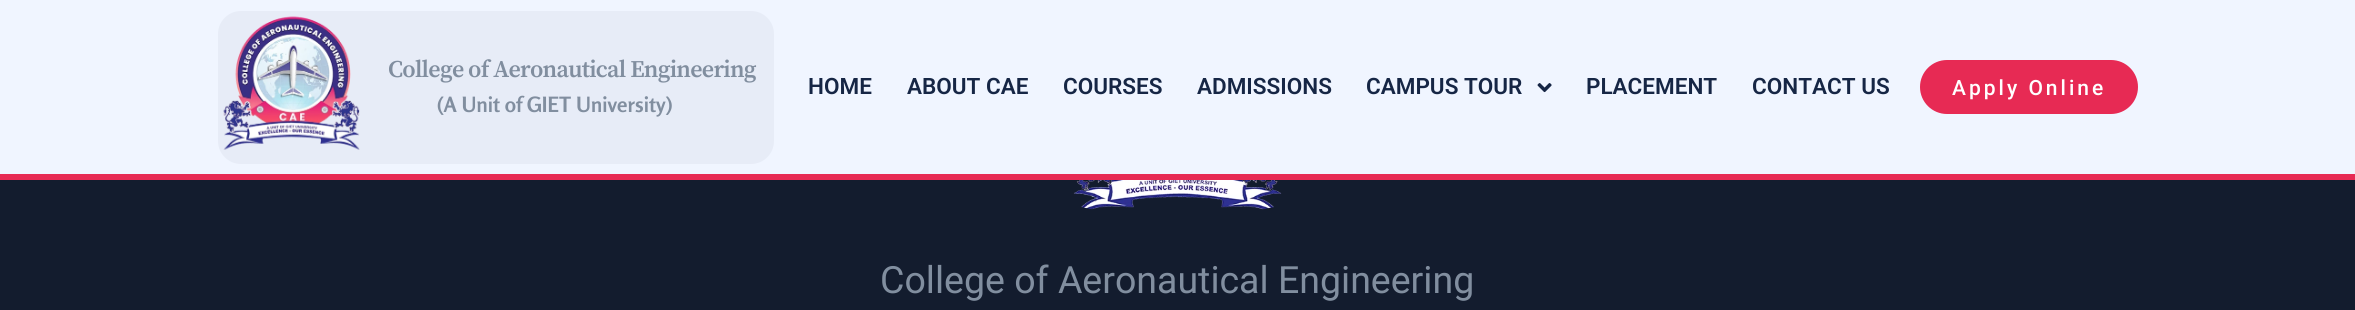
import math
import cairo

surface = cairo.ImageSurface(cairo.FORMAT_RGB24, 2355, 310)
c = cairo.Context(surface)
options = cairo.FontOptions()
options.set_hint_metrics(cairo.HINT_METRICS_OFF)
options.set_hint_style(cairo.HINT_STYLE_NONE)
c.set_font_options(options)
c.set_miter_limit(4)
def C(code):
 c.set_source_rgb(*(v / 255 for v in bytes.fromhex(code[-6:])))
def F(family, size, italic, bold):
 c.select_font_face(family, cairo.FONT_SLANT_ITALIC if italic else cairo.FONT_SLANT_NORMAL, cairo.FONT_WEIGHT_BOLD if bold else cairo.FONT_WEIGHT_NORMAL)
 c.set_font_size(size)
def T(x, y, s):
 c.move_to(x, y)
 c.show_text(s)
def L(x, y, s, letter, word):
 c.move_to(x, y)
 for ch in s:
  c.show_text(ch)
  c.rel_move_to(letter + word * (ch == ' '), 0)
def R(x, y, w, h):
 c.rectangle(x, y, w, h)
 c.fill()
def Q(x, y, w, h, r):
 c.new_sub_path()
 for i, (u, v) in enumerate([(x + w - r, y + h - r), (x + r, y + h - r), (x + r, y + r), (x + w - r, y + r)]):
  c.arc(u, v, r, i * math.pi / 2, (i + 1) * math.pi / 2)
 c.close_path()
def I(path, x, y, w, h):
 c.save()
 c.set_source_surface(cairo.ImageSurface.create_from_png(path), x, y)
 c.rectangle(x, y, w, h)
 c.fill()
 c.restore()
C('131c2e')
c.paint()
C('f0f5ff')
R(0,0,2355,174)
C('e72a54')
R(0,174,2355,6)
C('e7ecf7')
Q(218,11,556,153,23)
c.fill()
I('1.png',223,16,137,134)
F('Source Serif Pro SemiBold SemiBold',24,0,0)
C('818e9f')
L(388,77,'College of Aeronautical Engineering',-.75,0)
F('Rosario',21,0,1)
T(437,112,'(A Unit of GIET University)')
F('Roboto SemiBold',22.5,0,0)
C('162645')
T(808,94,'HOME')
T(907,94,'ABOUT CAE')
T(1063,94,'COURSES')
T(1197,94,'ADMISSIONS')
T(1366,94,'CAMPUS TOUR')
I('2.png',1537,83,15,10)
T(1586,94,'PLACEMENT')
T(1752,94,'CONTACT US')
C('e72a54')
Q(1921,61,216,52,26)
c.fill_preserve()
c.stroke()
F('Roboto Medium',21,0,0)
C('ffffff')
L(1952,95,'Apply Online',3,0)
I('3.png',1073,180,209,30)
F('Roboto',37.5,0,0)
C('818e9f')
T(880,293,'College of Aeronautical Engineering')
surface.write_to_png('o.png')
